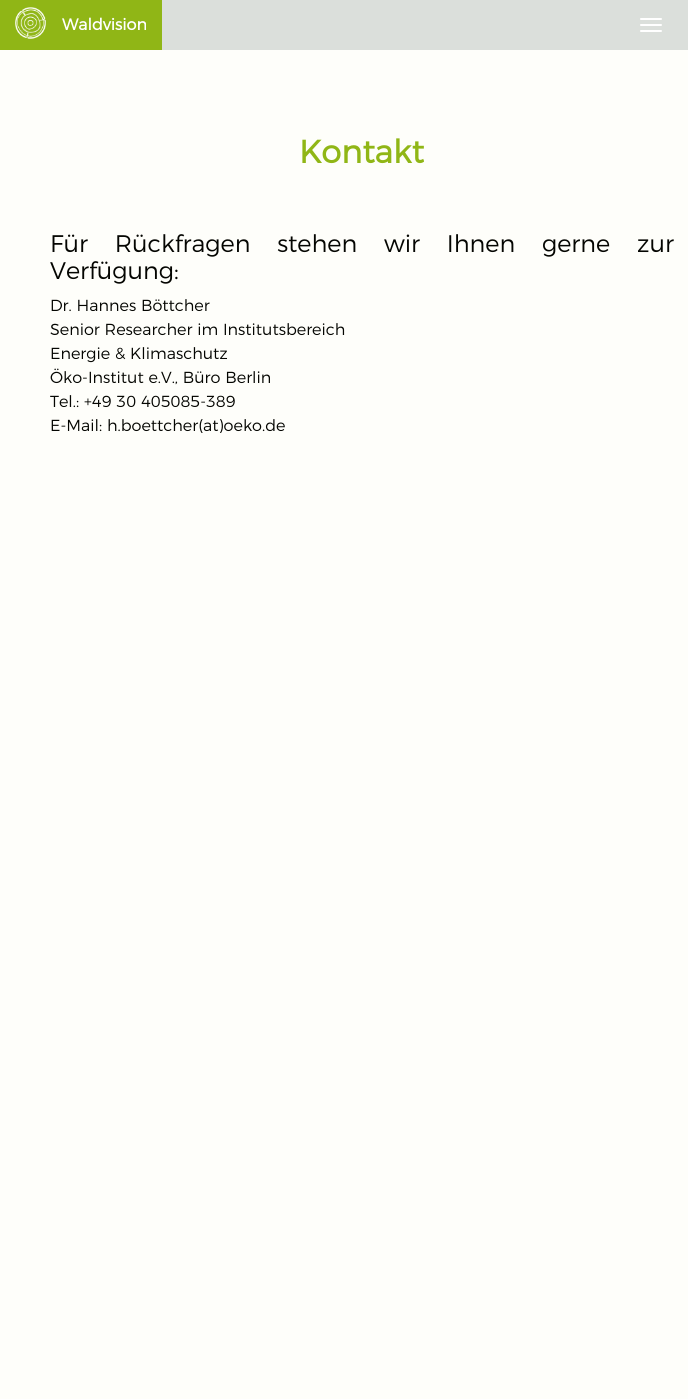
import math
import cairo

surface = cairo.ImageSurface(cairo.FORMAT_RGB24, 688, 1399)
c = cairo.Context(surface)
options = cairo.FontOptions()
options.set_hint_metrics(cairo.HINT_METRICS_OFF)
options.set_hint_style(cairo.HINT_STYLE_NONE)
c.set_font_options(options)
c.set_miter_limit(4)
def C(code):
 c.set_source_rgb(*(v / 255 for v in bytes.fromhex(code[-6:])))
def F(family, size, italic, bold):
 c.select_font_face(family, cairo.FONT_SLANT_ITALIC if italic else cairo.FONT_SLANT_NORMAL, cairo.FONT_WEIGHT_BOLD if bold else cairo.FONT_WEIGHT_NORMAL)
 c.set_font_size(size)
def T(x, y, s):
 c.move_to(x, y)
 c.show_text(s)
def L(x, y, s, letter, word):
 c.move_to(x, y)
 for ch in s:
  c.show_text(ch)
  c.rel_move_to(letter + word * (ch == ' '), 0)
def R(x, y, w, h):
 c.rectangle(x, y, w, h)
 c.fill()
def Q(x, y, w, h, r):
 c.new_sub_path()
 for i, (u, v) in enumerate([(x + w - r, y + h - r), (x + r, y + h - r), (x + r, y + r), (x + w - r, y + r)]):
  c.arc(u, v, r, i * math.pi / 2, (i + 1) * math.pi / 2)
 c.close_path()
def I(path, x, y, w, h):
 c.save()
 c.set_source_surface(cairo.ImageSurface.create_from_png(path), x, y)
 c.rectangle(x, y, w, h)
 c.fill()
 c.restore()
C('fefefa')
c.paint()
C('dbdfdb')
R(162,0,526,50)
C('90b616')
R(0,0,162,50)
I('1.png',15,7,31,32)
F('Montserrat',16,0,1)
C('ffffff')
T(62,30,'Waldvision')
Q(640,18,22,2,1)
c.fill()
Q(640,24,22,2,1)
c.fill()
Q(640,30,22,2,1)
c.fill()
F('Montserrat',32,0,1)
C('90b616')
T(299,163,'Kontakt')
F('Montserrat Light',24,0,0)
C('040501')
L(50,252,'Für Rückfragen stehen wir Ihnen gerne zur',0,19.5)
T(50,279,'Verfügung:')
F('Montserrat Light',16,0,0)
T(50,311,'Dr. Hannes Böttcher')
T(50,335,'Senior Researcher im Institutsbereich')
T(50,359,'Energie & Klimaschutz')
T(50,383,'Öko-Institut e.V., Büro Berlin')
T(50,407,'Tel.: +49 30 405085-389')
T(50,431,'E-Mail: h.boettcher(at)oeko.de')
surface.write_to_png('o.png')
